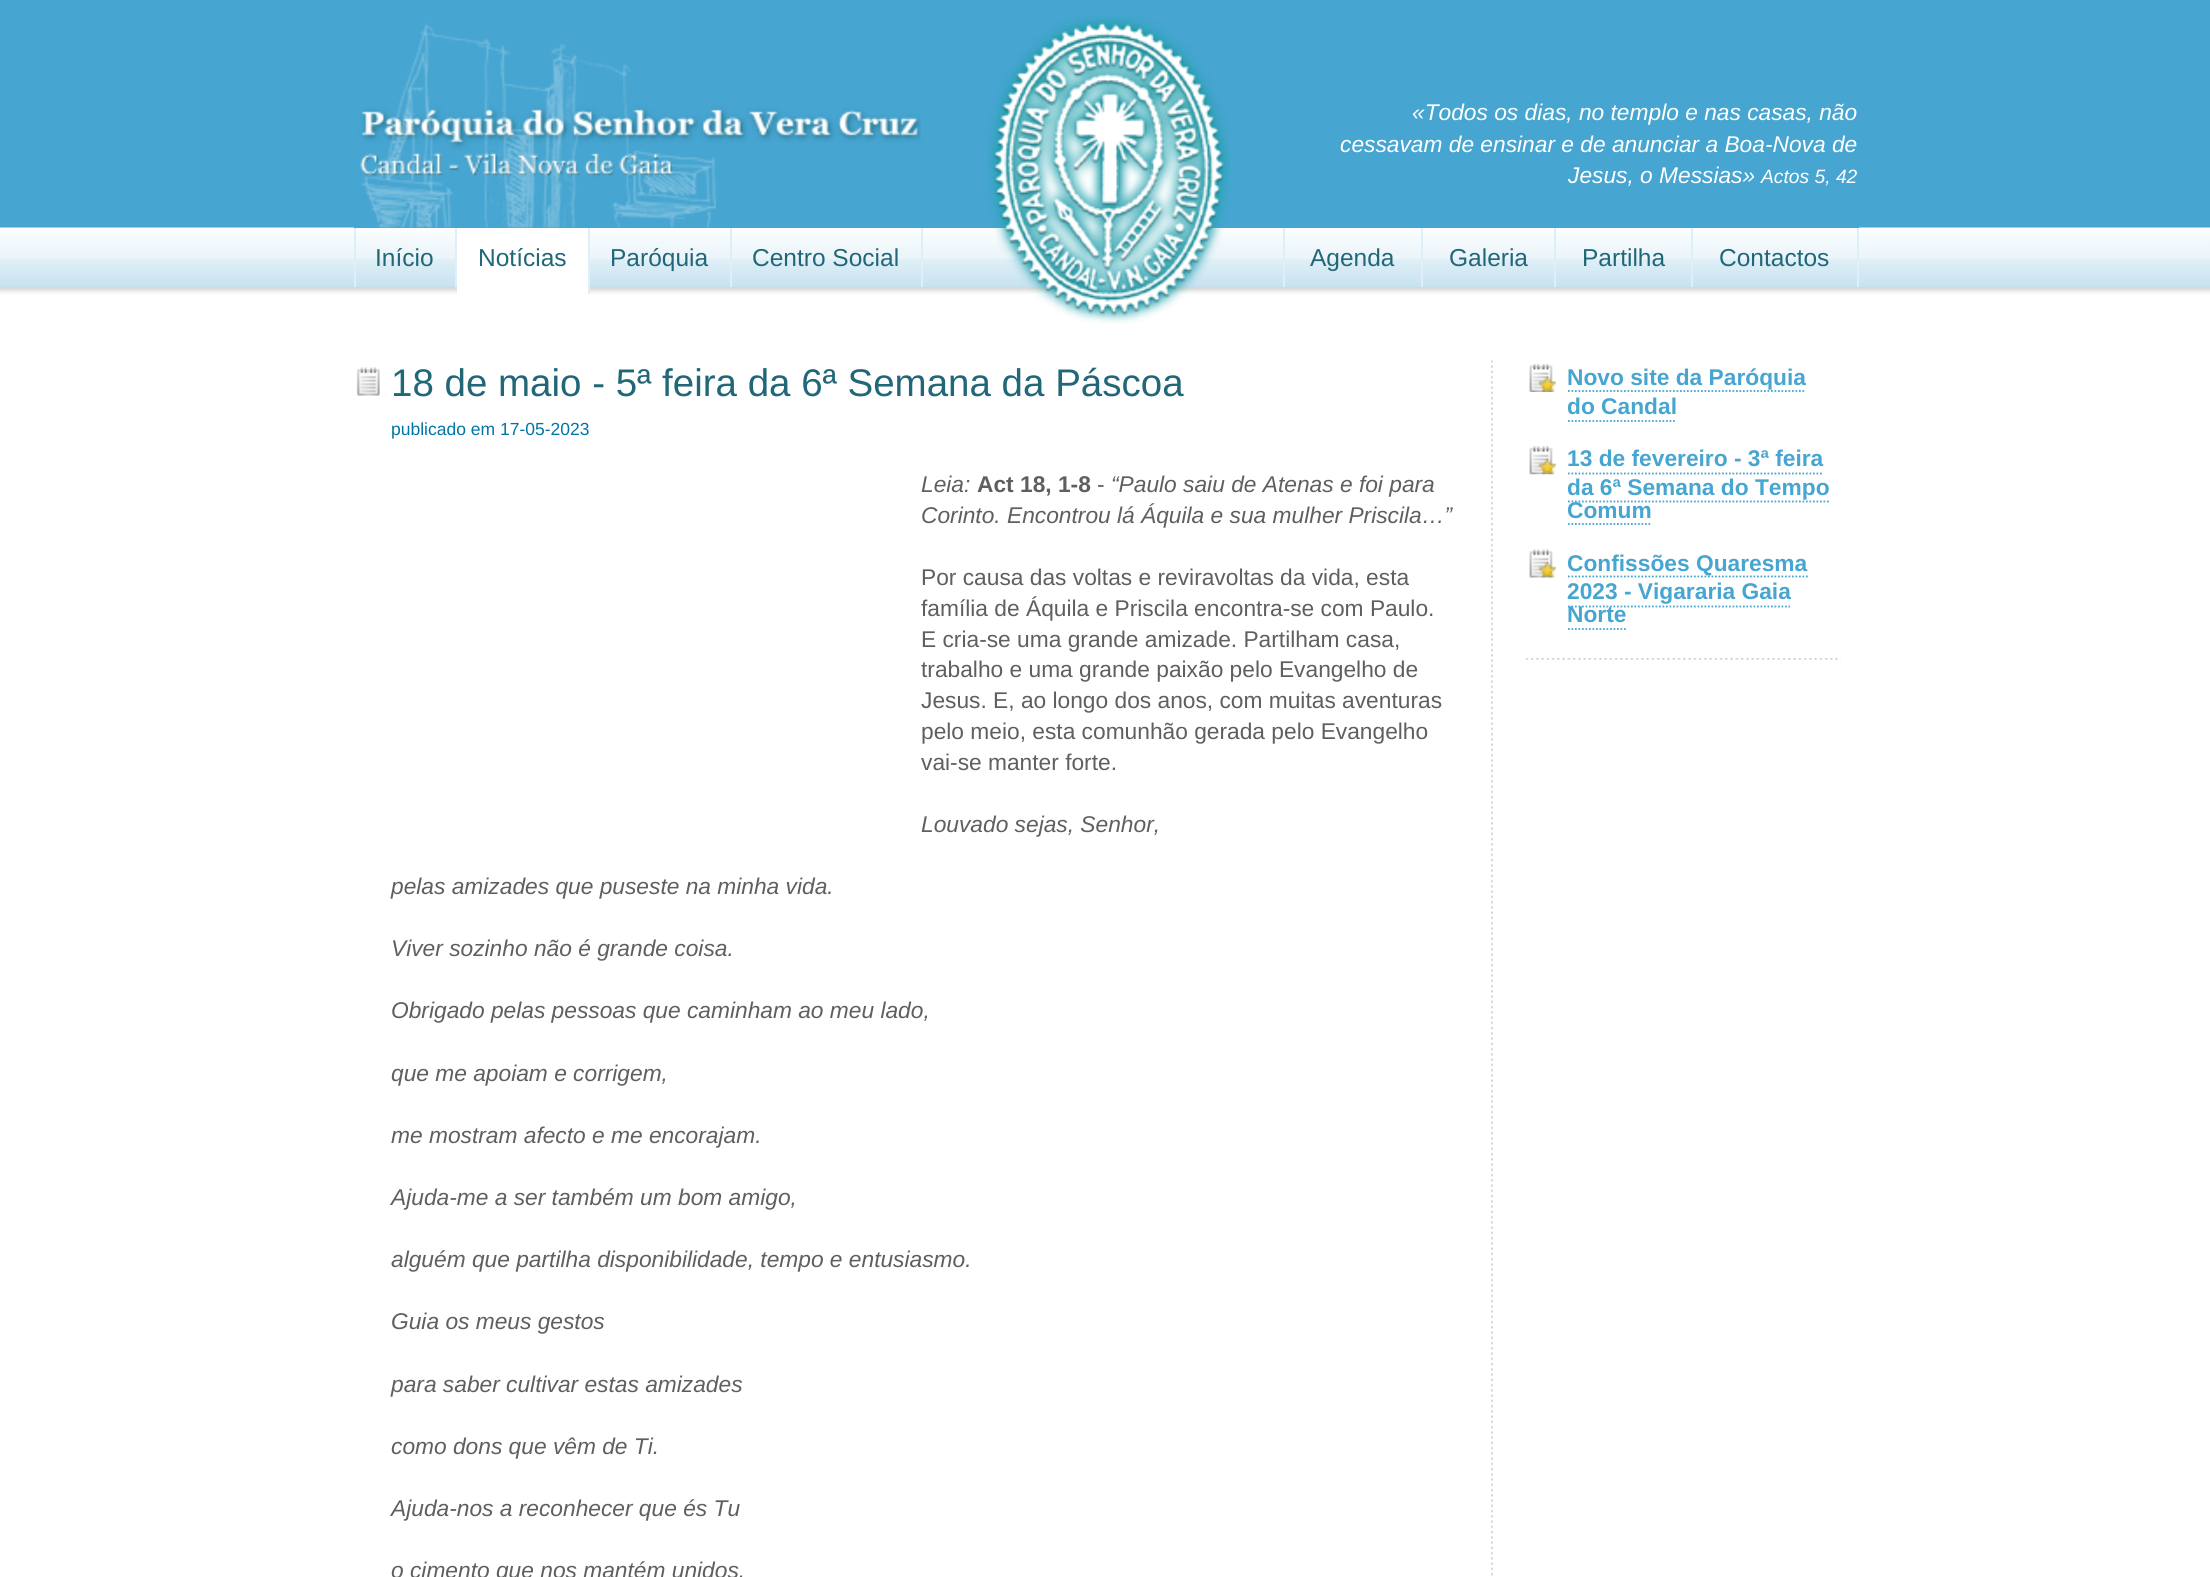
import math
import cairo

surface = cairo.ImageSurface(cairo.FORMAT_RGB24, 2210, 1577)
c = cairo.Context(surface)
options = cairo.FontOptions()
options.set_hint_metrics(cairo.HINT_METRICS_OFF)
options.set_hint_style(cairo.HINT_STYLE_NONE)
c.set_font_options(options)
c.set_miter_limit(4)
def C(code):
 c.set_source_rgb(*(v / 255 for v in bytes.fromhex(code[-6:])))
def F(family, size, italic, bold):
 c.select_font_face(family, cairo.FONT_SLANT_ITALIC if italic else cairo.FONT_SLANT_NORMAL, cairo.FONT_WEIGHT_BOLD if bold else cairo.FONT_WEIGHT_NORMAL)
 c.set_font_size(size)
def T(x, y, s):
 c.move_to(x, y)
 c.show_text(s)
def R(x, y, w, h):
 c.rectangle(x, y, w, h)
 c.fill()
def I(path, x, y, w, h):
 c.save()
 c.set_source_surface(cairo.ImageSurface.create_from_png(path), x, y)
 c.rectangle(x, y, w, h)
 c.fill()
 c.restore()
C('46a5d1')
c.paint()
I('3.png',0,227,2210,67)
C('46a5d1')
R(354,227,1505,1)
I('4.png',353,227,1,1)
I('1.png',353,23,568,205)
C('ffffff')
R(0,294,2210,1283)
I('2.png',987,15,244,309)
F('Liberation Sans',22.75,1,0)
T(1412,120,'«Todos os dias, no templo e nas casas, não')
T(1340,152,'cessavam de ensinar e de anunciar a Boa-Nova de')
T(1568,183,'Jesus, o Messias»')
F('Liberation Sans',19.25,1,0)
T(1761,183,'Actos 5, 42')
C('deeff8')
R(455,228,2,59)
R(354,228,2,59)
F('Liberation Sans',24.5,0,0)
C('216778')
T(375,266,'Início')
C('deeff8')
R(588,228,2,66)
C('ffffff')
R(457,230,131,64)
C('216778')
T(478,266,'Notícias')
C('deeff8')
R(730,228,2,59)
C('216778')
T(610,266,'Paróquia')
C('deeff8')
R(921,228,2,59)
C('216778')
T(752,266,'Centro Social')
C('deeff8')
R(1283,228,2,59)
C('216778')
T(1310,266,'Agenda')
C('deeff8')
R(1421,228,2,59)
C('216778')
T(1449,266,'Galeria')
C('deeff8')
R(1554,228,2,59)
C('216778')
T(1582,266,'Partilha')
C('deeff8')
R(1857,228,2,59)
R(1691,228,2,59)
C('216778')
T(1719,266,'Contactos')
I('5.png',1491,360,2,1216)
I('6.png',356,367,24,29)
F('Liberation Sans',38.5,0,0)
T(391,396,'18 de maio - 5ª feira da 6ª Semana da Páscoa')
F('Liberation Sans',17.5,0,0)
C('0074a6')
T(391,435,'publicado em 17-05-2023')
F('Liberation Sans',22.75,1,0)
C('5f5f5f')
T(921,492,'Leia:')
F('Liberation Sans',22.75,0,1)
T(977,492,'Act 18, 1-8')
F('Liberation Sans',22.75,0,0)
T(1097,492,'-')
F('Liberation Sans',22.75,1,0)
T(1111,492,'“Paulo saiu de Atenas e foi para')
T(921,523,'Corinto. Encontrou lá Áquila e sua mulher Priscila…”')
F('Liberation Sans',22.75,0,0)
T(921,585,'Por causa das voltas e reviravoltas da vida, esta')
T(921,616,'família de Áquila e Priscila encontra-se com Paulo.')
T(921,647,'E cria-se uma grande amizade. Partilham casa,')
T(921,677,'trabalho e uma grande paixão pelo Evangelho de')
T(921,708,'Jesus. E, ao longo dos anos, com muitas aventuras')
T(921,739,'pelo meio, esta comunhão gerada pelo Evangelho')
T(921,770,'vai-se manter forte.')
F('Liberation Sans',22.75,1,0)
T(921,832,'Louvado sejas, Senhor,')
T(391,894,'pelas amizades que puseste na minha vida.')
T(391,956,'Viver sozinho não é grande coisa.')
T(391,1018,'Obrigado pelas pessoas que caminham ao meu lado,')
T(391,1081,'que me apoiam e corrigem,')
T(391,1143,'me mostram afecto e me encorajam.')
T(391,1205,'Ajuda-me a ser também um bom amigo,')
T(391,1267,'alguém que partilha disponibilidade, tempo e entusiasmo.')
T(391,1329,'Guia os meus gestos')
T(391,1392,'para saber cultivar estas amizades')
T(391,1454,'como dons que vêm de Ti.')
T(391,1516,'Ajuda-nos a reconhecer que és Tu')
T(391,1578,'o cimento que nos mantém unidos.')
I('7.png',1526,658,315,2)
I('8.png',1529,364,27,28)
F('Liberation Sans',22.75,0,1)
C('46a5d1')
T(1567,385,'Novo site da Paróquia')
c.new_path()
c.move_to(1568,391)
c.line_to(1806,391)
c.set_line_width(1.8)
c.set_dash([1.75,1.75])
c.stroke()
T(1567,414,'do Candal')
c.new_path()
c.move_to(1568,421)
c.line_to(1676.5,421)
c.stroke()
I('9.png',1529,446,27,29)
T(1567,466,'13 de fevereiro - 3ª feira')
c.new_path()
c.move_to(1568,473.5)
c.line_to(1823.5,473.5)
c.stroke()
T(1567,495,'da 6ª Semana do Tempo')
c.new_path()
c.move_to(1568,501.5)
c.line_to(1830.5,501.5)
c.stroke()
T(1567,518,'Comum')
c.new_path()
c.move_to(1568,524)
c.line_to(1652,524)
c.stroke()
I('10.png',1529,549,27,29)
c.new_path()
c.move_to(1568,576.5)
c.line_to(1808,576.5)
c.stroke()
T(1567,571,'Confissões Quaresma')
T(1567,599,'2023 - Vigararia Gaia')
c.new_path()
c.move_to(1568,606.5)
c.line_to(1790,606.5)
c.stroke()
T(1567,622,'Norte')
c.new_path()
c.move_to(1568,629)
c.line_to(1626,629)
c.stroke()
surface.write_to_png('o.png')
